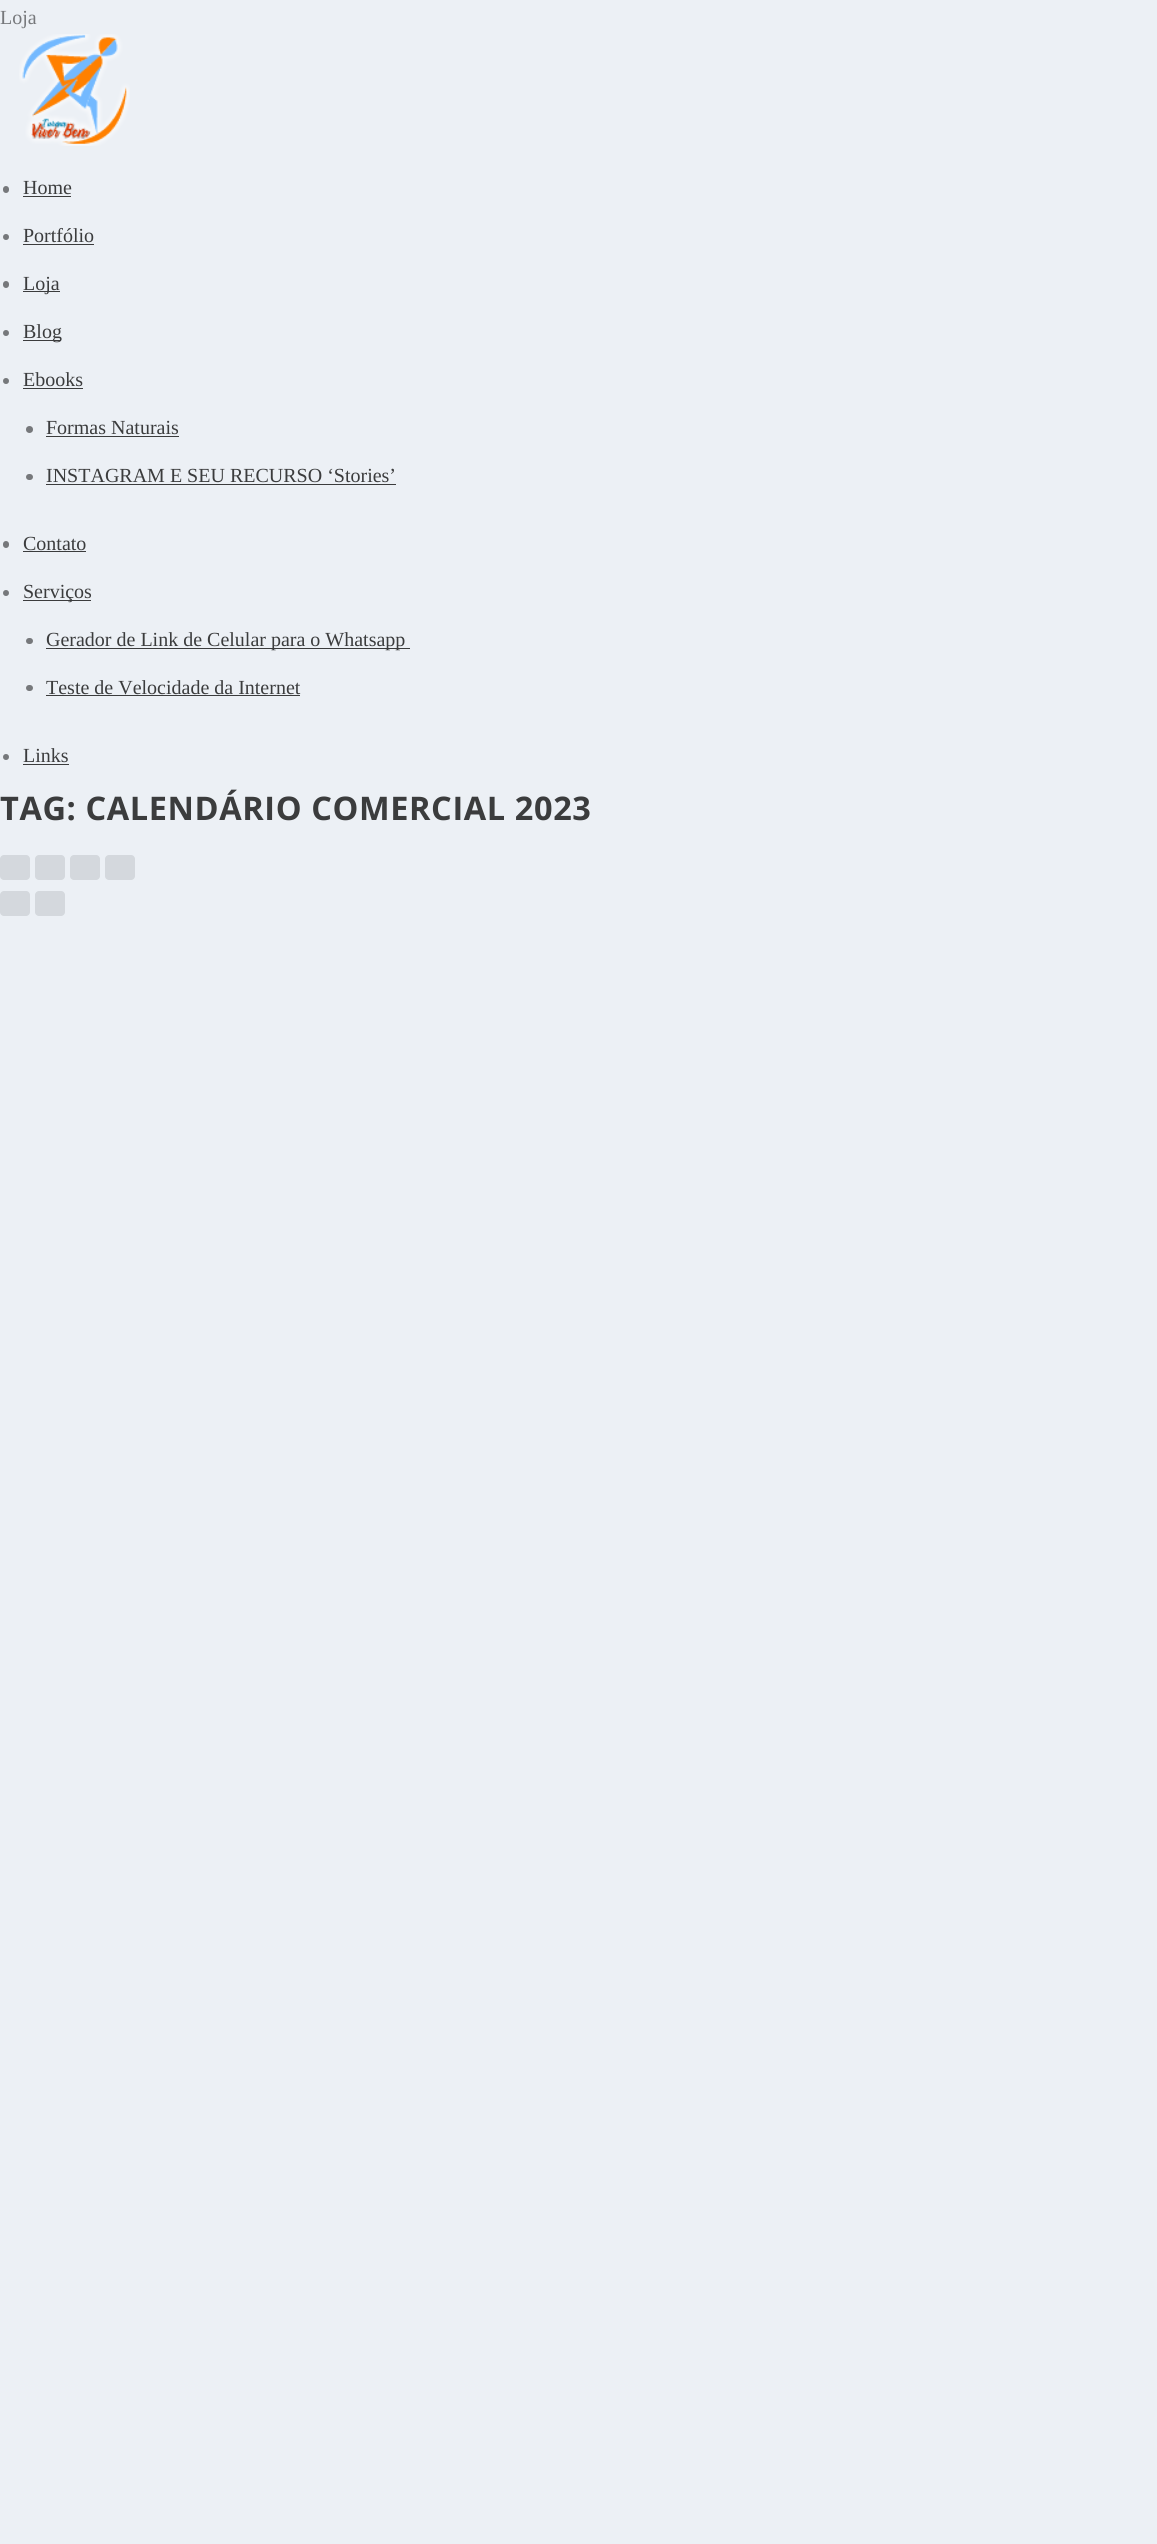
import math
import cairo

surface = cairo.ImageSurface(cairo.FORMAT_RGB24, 1157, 2544)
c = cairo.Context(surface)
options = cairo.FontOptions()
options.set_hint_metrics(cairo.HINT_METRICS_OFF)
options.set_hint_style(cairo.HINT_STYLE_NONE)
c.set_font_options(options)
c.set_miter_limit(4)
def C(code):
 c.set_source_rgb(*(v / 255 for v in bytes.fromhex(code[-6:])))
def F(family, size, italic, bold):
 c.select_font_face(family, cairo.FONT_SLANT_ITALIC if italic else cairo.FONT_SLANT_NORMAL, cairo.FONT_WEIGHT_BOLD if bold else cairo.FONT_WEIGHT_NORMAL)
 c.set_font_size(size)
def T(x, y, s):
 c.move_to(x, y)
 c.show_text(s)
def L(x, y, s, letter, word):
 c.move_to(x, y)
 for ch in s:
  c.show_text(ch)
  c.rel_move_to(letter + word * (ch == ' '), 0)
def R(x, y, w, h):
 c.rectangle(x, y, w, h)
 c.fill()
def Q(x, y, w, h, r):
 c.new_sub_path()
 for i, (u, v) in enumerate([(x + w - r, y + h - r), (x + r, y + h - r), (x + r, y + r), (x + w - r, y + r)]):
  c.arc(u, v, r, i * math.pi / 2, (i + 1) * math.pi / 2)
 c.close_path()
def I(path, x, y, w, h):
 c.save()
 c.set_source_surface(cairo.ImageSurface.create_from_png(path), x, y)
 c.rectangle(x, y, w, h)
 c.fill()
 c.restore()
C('ecf0f5')
c.paint()
F('Liberation Serif',20,0,0)
C('76787b')
T(0,24,'Loja')
I('1.png',19,34,111,112)
Q(3,186,6,7,3)
c.fill()
C('3b3c3d')
T(23,194,'Home')
R(23,196,48,1)
C('76787b')
c.new_path()
c.arc(6,237,3,0,2 * math.pi)
c.fill()
C('3b3c3d')
T(23,242,'Portfólio')
R(23,244,71,1)
C('76787b')
Q(3,281,6,7,3)
c.fill()
C('3b3c3d')
R(23,291,37,1)
T(23,290,'Loja')
C('76787b')
c.new_path()
c.arc(6,333,3,0,2 * math.pi)
c.fill()
C('3b3c3d')
R(23,340,38,1)
T(23,338,'Blog')
C('76787b')
c.new_path()
c.arc(6,381,3,0,2 * math.pi)
c.fill()
C('3b3c3d')
T(23,386,'Ebooks')
R(23,388,60,1)
C('76787b')
c.new_path()
c.arc(29.5,429.5,3.5,0,2 * math.pi)
c.fill()
C('3b3c3d')
T(46,434,'Formas Naturais')
R(46,436,133,1)
C('76787b')
Q(26,474,7,6,3)
c.fill()
C('3b3c3d')
T(46,482,'INSTAGRAM E SEU RECURSO ‘Stories’')
R(46,484,350,1)
C('76787b')
Q(3,541,6,7,3)
c.fill()
C('3b3c3d')
T(23,550,'Contato')
R(23,551,63,1)
C('76787b')
c.new_path()
c.arc(6,593,3,0,2 * math.pi)
c.fill()
C('3b3c3d')
R(23,600,68,1)
T(23,598,'Serviços')
C('76787b')
Q(26,638,7,6,3)
c.fill()
C('3b3c3d')
R(46,648,364,1)
T(46,646,'Gerador de Link de Celular para o Whatsapp')
C('76787b')
Q(26,685,7,6,3)
c.fill()
C('3b3c3d')
T(46,694,'Teste de Velocidade da Internet')
R(46,695,254,1)
C('76787b')
c.new_path()
c.arc(6,757,3,0,2 * math.pi)
c.fill()
C('3b3c3d')
T(23,762,'Links')
R(23,764,46,1)
F('Open Sans',32.5,0,1)
L(0,820,'TAG: CALENDÁRIO COMERCIAL 2023',.6,0)
C('d4d8dd')
Q(0,855,30,25,4)
c.fill()
Q(35,855,30,25,4)
c.fill()
Q(70,855,30,25,4)
c.fill()
Q(105,855,30,25,4)
c.fill()
Q(0,891,30,25,4)
c.fill()
Q(35,891,30,25,4)
c.fill()
surface.write_to_png('o.png')
